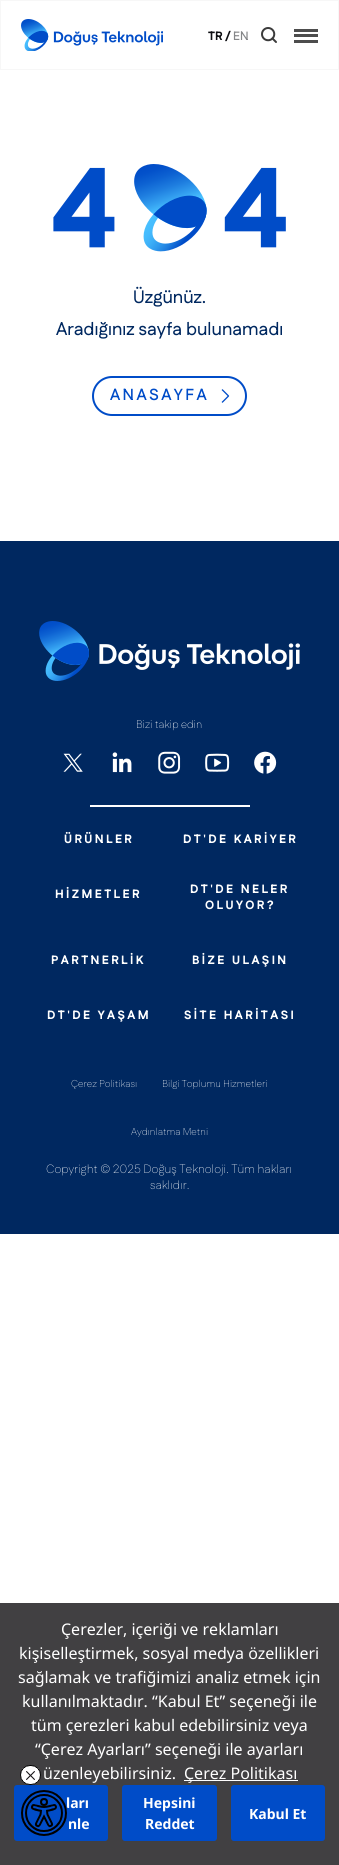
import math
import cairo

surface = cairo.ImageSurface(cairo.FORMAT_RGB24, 339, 1865)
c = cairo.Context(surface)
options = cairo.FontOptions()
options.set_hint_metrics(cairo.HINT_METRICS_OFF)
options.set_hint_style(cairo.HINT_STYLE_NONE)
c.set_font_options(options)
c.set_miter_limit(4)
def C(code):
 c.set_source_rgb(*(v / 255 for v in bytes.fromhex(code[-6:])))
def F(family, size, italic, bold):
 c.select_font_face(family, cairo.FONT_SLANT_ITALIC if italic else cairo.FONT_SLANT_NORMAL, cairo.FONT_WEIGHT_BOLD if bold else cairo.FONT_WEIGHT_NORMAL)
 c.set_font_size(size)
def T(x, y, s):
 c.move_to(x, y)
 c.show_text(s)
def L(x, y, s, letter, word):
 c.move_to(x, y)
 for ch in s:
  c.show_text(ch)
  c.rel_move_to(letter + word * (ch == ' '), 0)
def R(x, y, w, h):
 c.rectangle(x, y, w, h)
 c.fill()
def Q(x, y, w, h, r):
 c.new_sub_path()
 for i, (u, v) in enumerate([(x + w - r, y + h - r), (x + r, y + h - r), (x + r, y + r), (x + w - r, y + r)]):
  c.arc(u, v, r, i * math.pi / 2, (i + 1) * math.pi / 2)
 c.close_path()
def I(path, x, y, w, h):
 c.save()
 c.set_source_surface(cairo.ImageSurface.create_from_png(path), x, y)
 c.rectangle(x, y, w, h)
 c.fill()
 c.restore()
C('ffffff')
c.paint()
c.rectangle(.5,.5,338,69)
C('f7f7f7')
c.set_line_width(1)
c.stroke()
I('1.png',21,19,142,32)
F('Fustat ExtraBold',12,0,0)
C('0d0e12')
T(208,40,'TR')
T(225,40,'/')
F('Fustat SemiBold',12,0,0)
C('868789')
T(233,40,'EN')
I('2.png',261,27,16,16)
C('4d4d4d')
R(294,34,24,3)
R(294,29,24,3)
R(294,40,24,3)
I('3.png',53,164,233,88)
F('Fustat Medium',18,0,0)
C('002860')
T(133,303,'Üzgünüz.')
T(56,335,'Aradığınız sayfa bulunamadı')
Q(93,377,153,38,19)
C('004cc8')
c.set_line_width(2)
c.stroke()
F('Fustat SemiBold',16,0,0)
L(110,400,'ANASAYFA',2.4,0)
c.new_path()
c.move_to(222.5,402)
c.line_to(228.5,396)
c.line_to(222.5,390)
c.set_line_width(1.3)
c.set_line_cap(cairo.LINE_CAP_SQUARE)
c.set_line_join(cairo.LINE_JOIN_ROUND)
c.stroke()
C('002860')
R(0,541,339,693)
I('4.png',39,621,261,60)
F('Fustat ExtraLight',11,0,0)
C('ffffff')
T(136,728,'Bizi takip edin')
I('5.png',63,753,20,19)
I('6.png',112,752,20,21)
I('7.png',158,751,23,23)
I('8.png',205,753,25,19)
I('9.png',254,751,23,23)
R(90,805,160,2)
F('Fustat ExtraBold',12,0,0)
L(64,843,'ÜRÜNLER',2.4,0)
L(183,843,'DT\'DE KARİYER',2.4,0)
L(55,898,'HİZMETLER',2.4,0)
L(190,893,'DT\'DE NELER',2.4,0)
L(205,909,'OLUYOR?',2.4,0)
L(51,964,'PARTNERLİK',2.4,0)
L(192,964,'BİZE ULAŞIN',2.4,0)
L(47,1019,'DT\'DE YAŞAM',2.4,0)
L(184,1019,'SİTE HARİTASI',2.4,0)
F('Fustat ExtraLight',10,0,0)
T(71,1087,'Çerez Politikası')
T(162,1087,'Bilgi Toplumu Hizmetleri')
T(131,1135,'Aydınlatma Metni')
F('Fustat ExtraLight',12,0,0)
T(46,1173,'Copyright © 2025 Doğuş Teknoloji. Tüm hakları')
T(150,1189,'saklıdır.')
C('414042')
R(0,1603,339,262)
F('Noto Sans',16,0,0)
C('ffffff')
T(61,1635,'Çerezler, içeriği ve reklamları')
T(19,1659,'kişiselleştirmek, sosyal medya özellikleri')
T(18,1683,'sağlamak ve trafiğimizi analiz etmek için')
T(22,1707,'kullanılmaktadır. “Kabul Et” seçeneği ile')
T(31,1731,'tüm çerezleri kabul edebilirsiniz veya')
T(35,1755,'“Çerez Ayarları” seçeneği ile ayarları')
T(43,1779,'üzenleyebilirsiniz.')
R(184,1780,114,1)
T(184,1779,'Çerez Politikası')
C('004cc8')
Q(14,1785,94,56,3)
c.fill()
F('Noto Sans',14,0,1)
C('ffffff')
T(66,1808,'ları')
T(68,1829,'nle')
C('004cc8')
Q(122,1785,95,56,3)
c.fill()
C('ffffff')
T(143,1808,'Hepsini')
T(145,1829,'Reddet')
C('004cc8')
Q(231,1785,94,56,3)
c.fill()
C('ffffff')
T(249,1819,'Kabul Et')
I('10.png',20,1765,48,71)
surface.write_to_png('o.png')
